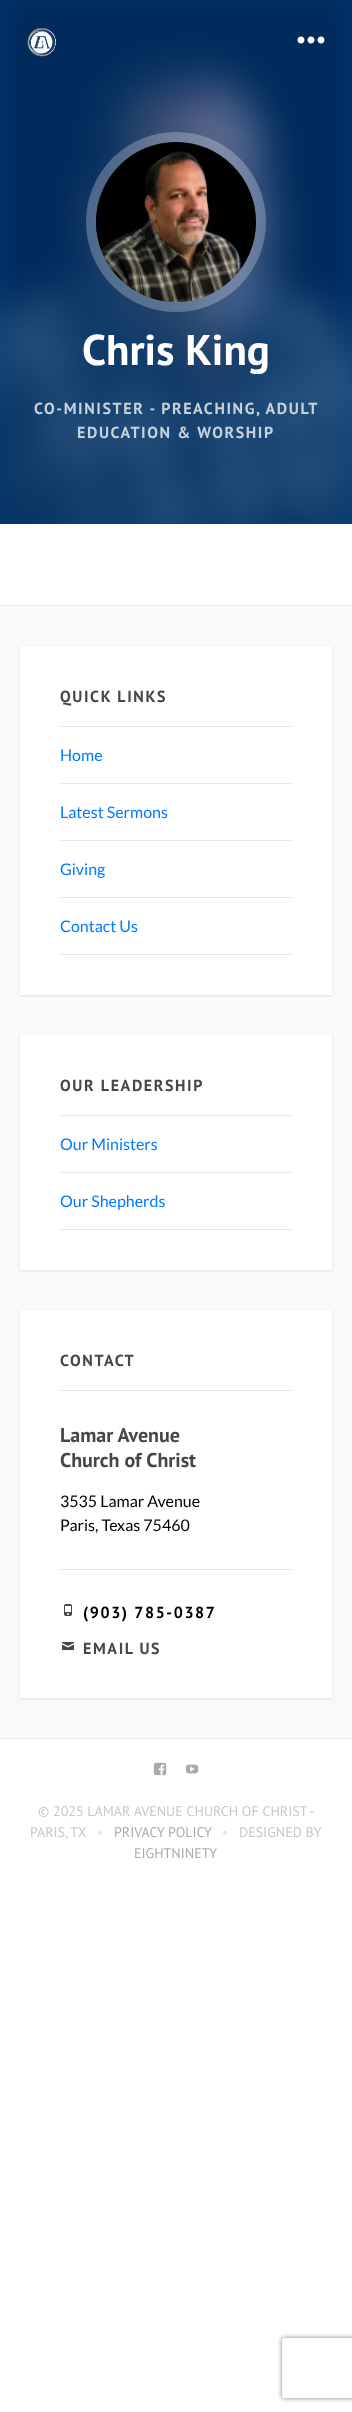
<svg xmlns="http://www.w3.org/2000/svg" width="352" height="2412" viewBox="0 0 352 2412">
  <defs>
    <filter id="blur1" x="-50%" y="-200%" width="200%" height="500%"><feGaussianBlur stdDeviation="1"/></filter>
    <clipPath id="clip1"><path d="M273 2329H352V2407H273ZM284 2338H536C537 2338 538 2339 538 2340V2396C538 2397 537 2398 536 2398H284C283 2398 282 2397 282 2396V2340C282 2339 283 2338 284 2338Z" clip-rule="evenodd"/></clipPath>
    <filter id="blur2" x="-50%" y="-200%" width="200%" height="500%"><feGaussianBlur stdDeviation="2.5"/></filter>
  </defs>
  <rect width="100%" height="100%" fill="#ffffff"/>
  <rect x="0" y="0" width="352" height="524" fill="#004999"/>
  <image x="0" y="0" width="352" height="524" href="img1.png"/>
  <image x="27" y="28" width="30" height="29" href="img2.png"/>
  <image x="297" y="36" width="28" height="8" href="img3.png"/>
  <circle cx="176" cy="222" r="85" fill="none" stroke="#ffffff" stroke-opacity="0.25" stroke-width="10"/>
  <image x="96" y="142" width="160" height="160" href="img4.png"/>
  <text x="82" y="365" font-family="PT Sans" font-size="43" font-weight="bold" fill="#ffffff">Chris King</text>
  <text x="34" y="414" font-family="PT Sans" font-size="16" font-weight="bold" letter-spacing="1.6" fill="#c6d1dc">CO-MINISTER - PREACHING, ADULT</text>
  <text x="77" y="438" font-family="PT Sans" font-size="16" font-weight="bold" letter-spacing="1.6" fill="#c6d1dc">EDUCATION &amp; WORSHIP</text>
  <rect x="0" y="606" width="352" height="1132" fill="#f9f9f9"/>
  <rect x="0" y="605" width="352" height="1" fill="#e9e9e9"/>
  <rect x="20" y="647" width="312" height="349" fill="#000000" fill-opacity="0.1" filter="url(#blur1)"/>
  <rect x="20" y="646" width="312" height="349" fill="#ffffff"/>
  <text x="60" y="702" font-family="PT Sans" font-size="16" font-weight="bold" letter-spacing="1.6" fill="#47474a">QUICK LINKS</text>
  <rect x="60" y="954" width="232" height="1" fill="#e9e9e9"/>
  <rect x="60" y="726" width="232" height="1" fill="#e9e9e9"/>
  <text x="60" y="761" font-family="Lato" font-size="16" fill="#007aff">Home</text>
  <rect x="60" y="783" width="232" height="1" fill="#e9e9e9"/>
  <text x="60" y="818" font-family="Lato" font-size="16" fill="#007aff">Latest Sermons</text>
  <rect x="60" y="840" width="232" height="1" fill="#e9e9e9"/>
  <text x="60" y="875" font-family="Lato" font-size="16" fill="#007aff">Giving</text>
  <rect x="60" y="897" width="232" height="1" fill="#e9e9e9"/>
  <text x="60" y="932" font-family="Lato" font-size="16" fill="#007aff">Contact Us</text>
  <rect x="20" y="1036" width="312" height="235" fill="#000000" fill-opacity="0.1" filter="url(#blur1)"/>
  <rect x="20" y="1035" width="312" height="235" fill="#ffffff"/>
  <text x="60" y="1091" font-family="PT Sans" font-size="16" font-weight="bold" letter-spacing="1.6" fill="#47474a">OUR LEADERSHIP</text>
  <rect x="60" y="1229" width="232" height="1" fill="#e9e9e9"/>
  <rect x="60" y="1115" width="232" height="1" fill="#e9e9e9"/>
  <text x="60" y="1150" font-family="Lato" font-size="16" fill="#007aff">Our Ministers</text>
  <rect x="60" y="1172" width="232" height="1" fill="#e9e9e9"/>
  <text x="60" y="1207" font-family="Lato" font-size="16" fill="#007aff">Our Shepherds</text>
  <rect x="20" y="1311" width="312" height="388" fill="#000000" fill-opacity="0.1" filter="url(#blur1)"/>
  <rect x="20" y="1310" width="312" height="388" fill="#ffffff"/>
  <text x="60" y="1366" font-family="PT Sans" font-size="16" font-weight="bold" letter-spacing="1.6" fill="#47474a">CONTACT</text>
  <rect x="60" y="1390" width="232" height="1" fill="#e9e9e9"/>
  <text x="60" y="1442" font-family="PT Sans" font-size="20" font-weight="bold" fill="#47474a">Lamar Avenue</text>
  <text x="60" y="1467" font-family="PT Sans" font-size="20" font-weight="bold" fill="#47474a">Church of Christ</text>
  <text x="60" y="1507" font-family="Lato" font-size="16" fill="#000000">3535 Lamar Avenue</text>
  <text x="60" y="1531" font-family="Lato" font-size="16" fill="#000000">Paris, Texas 75460</text>
  <rect x="60" y="1569" width="232" height="1" fill="#e9e9e9"/>
  <image x="64" y="1604" width="8" height="12" href="img5.png"/>
  <text x="83" y="1618" font-family="PT Sans" font-size="16" font-weight="bold" letter-spacing="1.6" fill="#000000">(903) 785-0387</text>
  <image x="62" y="1642" width="12" height="8" href="img6.png"/>
  <text x="83" y="1654" font-family="PT Sans" font-size="16" font-weight="bold" letter-spacing="1.6" fill="#47474a">EMAIL US</text>
  <rect x="0" y="1738" width="352" height="1" fill="#e9e9e9"/>
  <image x="153" y="1762" width="14" height="14" href="img7.png"/>
  <image x="185" y="1764" width="14" height="10" href="img8.png"/>
  <text x="38" y="1816" font-family="PT Sans" font-size="14" fill="#c7c7c9">© 2025 LAMAR AVENUE CHURCH OF CHRIST -</text>
  <text x="30" y="1837" font-family="PT Sans" font-size="14" fill="#c7c7c9">PARIS, TX</text>
  <text x="97" y="1837" font-family="PT Sans" font-size="14" fill="#e3e3e4">•</text>
  <text x="114" y="1837" font-family="PT Sans" font-size="14" fill="#aaaaae">PRIVACY POLICY</text>
  <text x="222" y="1837" font-family="PT Sans" font-size="14" fill="#e3e3e4">•</text>
  <text x="239" y="1837" font-family="PT Sans" font-size="14" fill="#c7c7c9">DESIGNED BY</text>
  <text x="134" y="1858" font-family="PT Sans" font-size="14" fill="#aaaaae">EIGHTNINETY</text>
  <g clip-path="url(#clip1)">
    <rect x="282" y="2338" width="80" height="60" rx="2" fill="#808080" filter="url(#blur2)"/>
  </g>
</svg>
